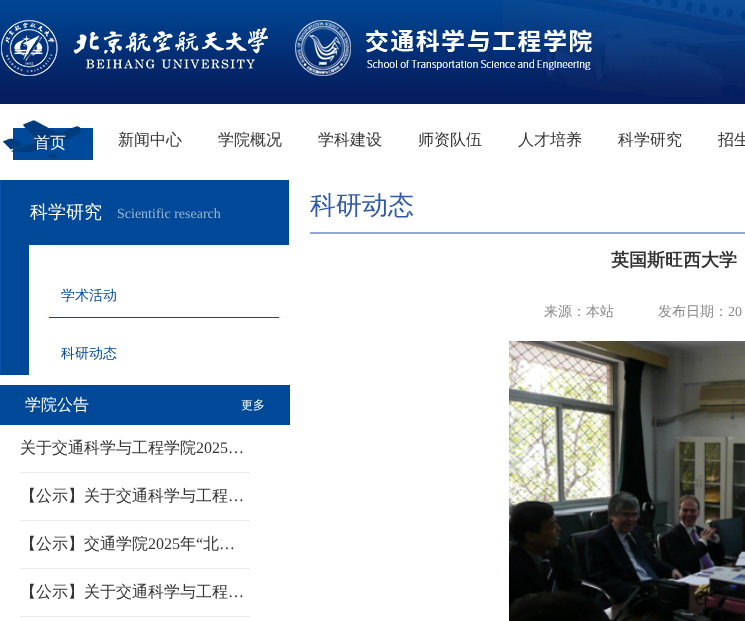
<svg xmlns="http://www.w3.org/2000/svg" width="745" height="621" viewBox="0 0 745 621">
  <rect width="100%" height="100%" fill="#ffffff"/>
  <image x="0" y="0" width="745" height="104" href="img1.png"/>
  <image x="503" y="0" width="242" height="97" href="img2.png"/>
  <image x="1" y="20" width="591" height="56" href="img3.png"/>
  <image x="0" y="120" width="96" height="40" href="img4.png"/>
  <text x="34" y="148" font-family="WenQuanYi Zen Hei" font-size="16" font-weight="500" fill="#ffffff">首页</text>
  <text x="118" y="145" font-family="WenQuanYi Zen Hei" font-size="16" font-weight="500" fill="#333333">新闻中心</text>
  <text x="218" y="145" font-family="WenQuanYi Zen Hei" font-size="16" font-weight="500" fill="#333333">学院概况</text>
  <text x="318" y="145" font-family="WenQuanYi Zen Hei" font-size="16" font-weight="500" fill="#333333">学科建设</text>
  <text x="418" y="145" font-family="WenQuanYi Zen Hei" font-size="16" font-weight="500" fill="#333333">师资队伍</text>
  <text x="518" y="145" font-family="WenQuanYi Zen Hei" font-size="16" font-weight="500" fill="#333333">人才培养</text>
  <text x="618" y="145" font-family="WenQuanYi Zen Hei" font-size="16" font-weight="500" fill="#333333">科学研究</text>
  <text x="718" y="145" font-family="WenQuanYi Zen Hei" font-size="16" font-weight="500" fill="#333333">招生</text>
  <image x="0" y="180" width="289" height="195" href="img5.png"/>
  <text x="30" y="218" font-family="WenQuanYi Zen Hei" font-size="18" font-weight="500" fill="#ffffff">科学研究</text>
  <text x="117" y="218" font-family="Liberation Serif" font-size="14" fill="#99b6d6">Scientific research</text>
  <rect x="29" y="245" width="260" height="130" fill="#ffffff"/>
  <rect x="49" y="317" width="230" height="1" fill="#004999"/>
  <text x="61" y="300" font-family="WenQuanYi Zen Hei" font-size="14" font-weight="500" fill="#004999">学术活动</text>
  <text x="61" y="358" font-family="WenQuanYi Zen Hei" font-size="14" font-weight="500" fill="#004999">科研动态</text>
  <rect x="0" y="385" width="290" height="40" fill="#004999"/>
  <text x="25" y="410" font-family="WenQuanYi Zen Hei" font-size="16" font-weight="500" fill="#ffffff">学院公告</text>
  <text x="241" y="409" font-family="WenQuanYi Zen Hei" font-size="12" font-weight="500" fill="#ffffff">更多</text>
  <rect x="20" y="472" width="230" height="1" fill="#e9ecf1"/>
  <text x="20" y="453" font-family="WenQuanYi Zen Hei" font-size="16" font-weight="500" fill="#333333">关于交通科学与工程学院</text>
  <text x="196" y="453" font-family="Liberation Serif" font-size="16" fill="#333333">2025…</text>
  <rect x="20" y="520" width="230" height="1" fill="#e9ecf1"/>
  <text x="20" y="501" font-family="WenQuanYi Zen Hei" font-size="16" font-weight="500" fill="#333333">【公示】关于交通科学与工程</text>
  <text x="228" y="501" font-family="Liberation Serif" font-size="16" fill="#333333">…</text>
  <rect x="20" y="568" width="230" height="1" fill="#e9ecf1"/>
  <text x="20" y="549" font-family="WenQuanYi Zen Hei" font-size="16" font-weight="500" fill="#333333">【公示】交通学院</text>
  <text x="148" y="549" font-family="Liberation Serif" font-size="16" fill="#333333">2025</text>
  <text x="180" y="549" font-family="WenQuanYi Zen Hei" font-size="16" font-weight="500" fill="#333333">年</text>
  <text x="196" y="549" font-family="Liberation Serif" font-size="16" fill="#333333">“</text>
  <text x="203" y="549" font-family="WenQuanYi Zen Hei" font-size="16" font-weight="500" fill="#333333">北</text>
  <text x="219" y="549" font-family="Liberation Serif" font-size="16" fill="#333333">…</text>
  <rect x="20" y="616" width="230" height="1" fill="#e9ecf1"/>
  <text x="20" y="597" font-family="WenQuanYi Zen Hei" font-size="16" font-weight="500" fill="#333333">【公示】关于交通科学与工程</text>
  <text x="228" y="597" font-family="Liberation Serif" font-size="16" fill="#333333">…</text>
  <rect x="310" y="232" width="435" height="2" fill="#92a7d3"/>
  <text x="310" y="214" font-family="WenQuanYi Zen Hei" font-size="26" font-weight="500" fill="#315aaa">科研动态</text>
  <text x="611" y="266" font-family="WenQuanYi Zen Hei" font-size="18" font-weight="bold" fill="#333333">英国斯旺西大学</text>
  <text x="544" y="316" font-family="WenQuanYi Zen Hei" font-size="14" font-weight="500" fill="#888888">来源：本站</text>
  <text x="658" y="316" font-family="WenQuanYi Zen Hei" font-size="14" font-weight="500" fill="#888888">发布日期：</text>
  <text x="728" y="316" font-family="Liberation Serif" font-size="14" fill="#888888">20</text>
  <image x="509" y="341" width="236" height="280" href="img6.png"/>
</svg>
